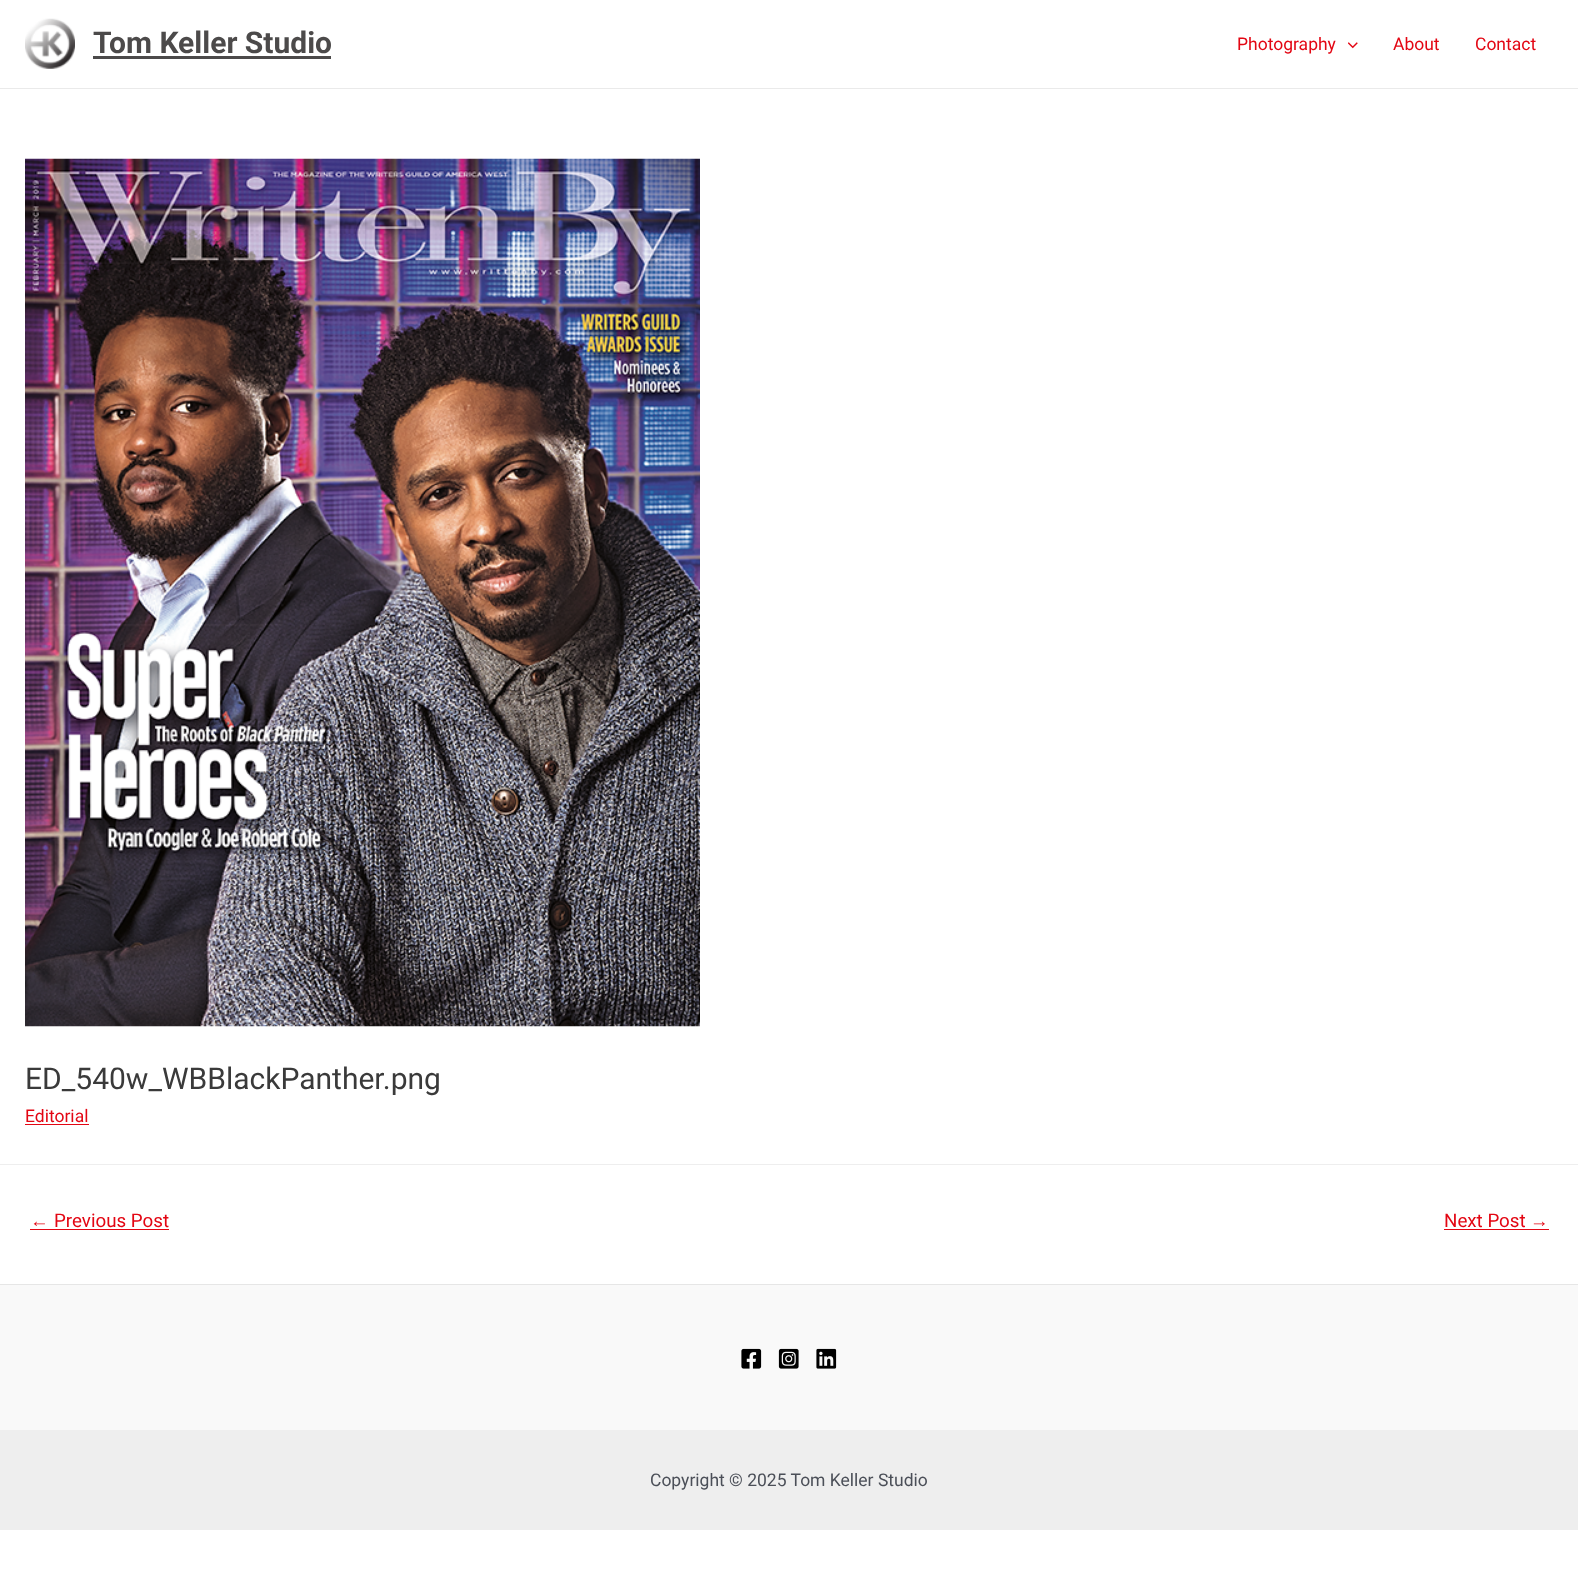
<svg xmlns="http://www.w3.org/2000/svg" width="1578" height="1582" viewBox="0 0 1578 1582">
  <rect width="100%" height="100%" fill="#ffffff"/>
  <rect x="0" y="88" width="1578" height="1" fill="#eaeaea"/>
  <image x="25" y="18" width="50" height="51" href="img1.png"/>
  <text x="93" y="53" font-family="Roboto" font-size="30" font-weight="bold" fill="#4c4a4a">Tom Keller Studio</text>
  <rect x="93" y="56" width="238" height="3" fill="#4c4a4a"/>
  <text x="1237" y="50" font-family="Roboto" font-size="17.5" fill="#e30613">Photography</text>
  <image x="1348" y="42" width="10" height="7" href="img2.png"/>
  <text x="1393" y="50" font-family="Roboto" font-size="17.5" fill="#e30613">About</text>
  <text x="1475" y="50" font-family="Roboto" font-size="17.5" fill="#e30613">Contact</text>
  <image x="25" y="158" width="675" height="869" href="img3.png"/>
  <text x="25" y="1089" font-family="Roboto" font-size="30" fill="#3a3a3a">ED_540w_WBBlackPanther.png</text>
  <text x="25" y="1122" font-family="Roboto" font-size="17.5" fill="#e30613">Editorial</text>
  <rect x="25" y="1124" width="64" height="1" fill="#e30613"/>
  <rect x="0" y="1164" width="1578" height="1" fill="#eeeeee"/>
  <text x="30" y="1227" font-family="Liberation Sans" font-size="18.75" fill="#e30613">←</text>
  <rect x="30" y="1229" width="139" height="1" fill="#e30613"/>
  <text x="54" y="1227" font-family="Roboto" font-size="18.75" fill="#e30613">Previous Post</text>
  <text x="1444" y="1227" font-family="Roboto" font-size="18.75" fill="#e30613">Next Post</text>
  <rect x="1444" y="1229" width="105" height="1" fill="#e30613"/>
  <text x="1530" y="1227" font-family="Liberation Sans" font-size="18.75" fill="#e30613">→</text>
  <rect x="0" y="1285" width="1578" height="145" fill="#f9f9f9"/>
  <rect x="0" y="1284" width="1578" height="1" fill="#e6e6e6"/>
  <image x="741" y="1348" width="21" height="21" href="img4.png"/>
  <image x="778" y="1348" width="21" height="21" href="img5.png"/>
  <image x="816" y="1348" width="21" height="21" href="img6.png"/>
  <rect x="0" y="1430" width="1578" height="100" fill="#eeeeee"/>
  <text x="650" y="1486" font-family="Roboto" font-size="17.5" fill="#4b4f58">Copyright © 2025 Tom Keller Studio</text>
</svg>
